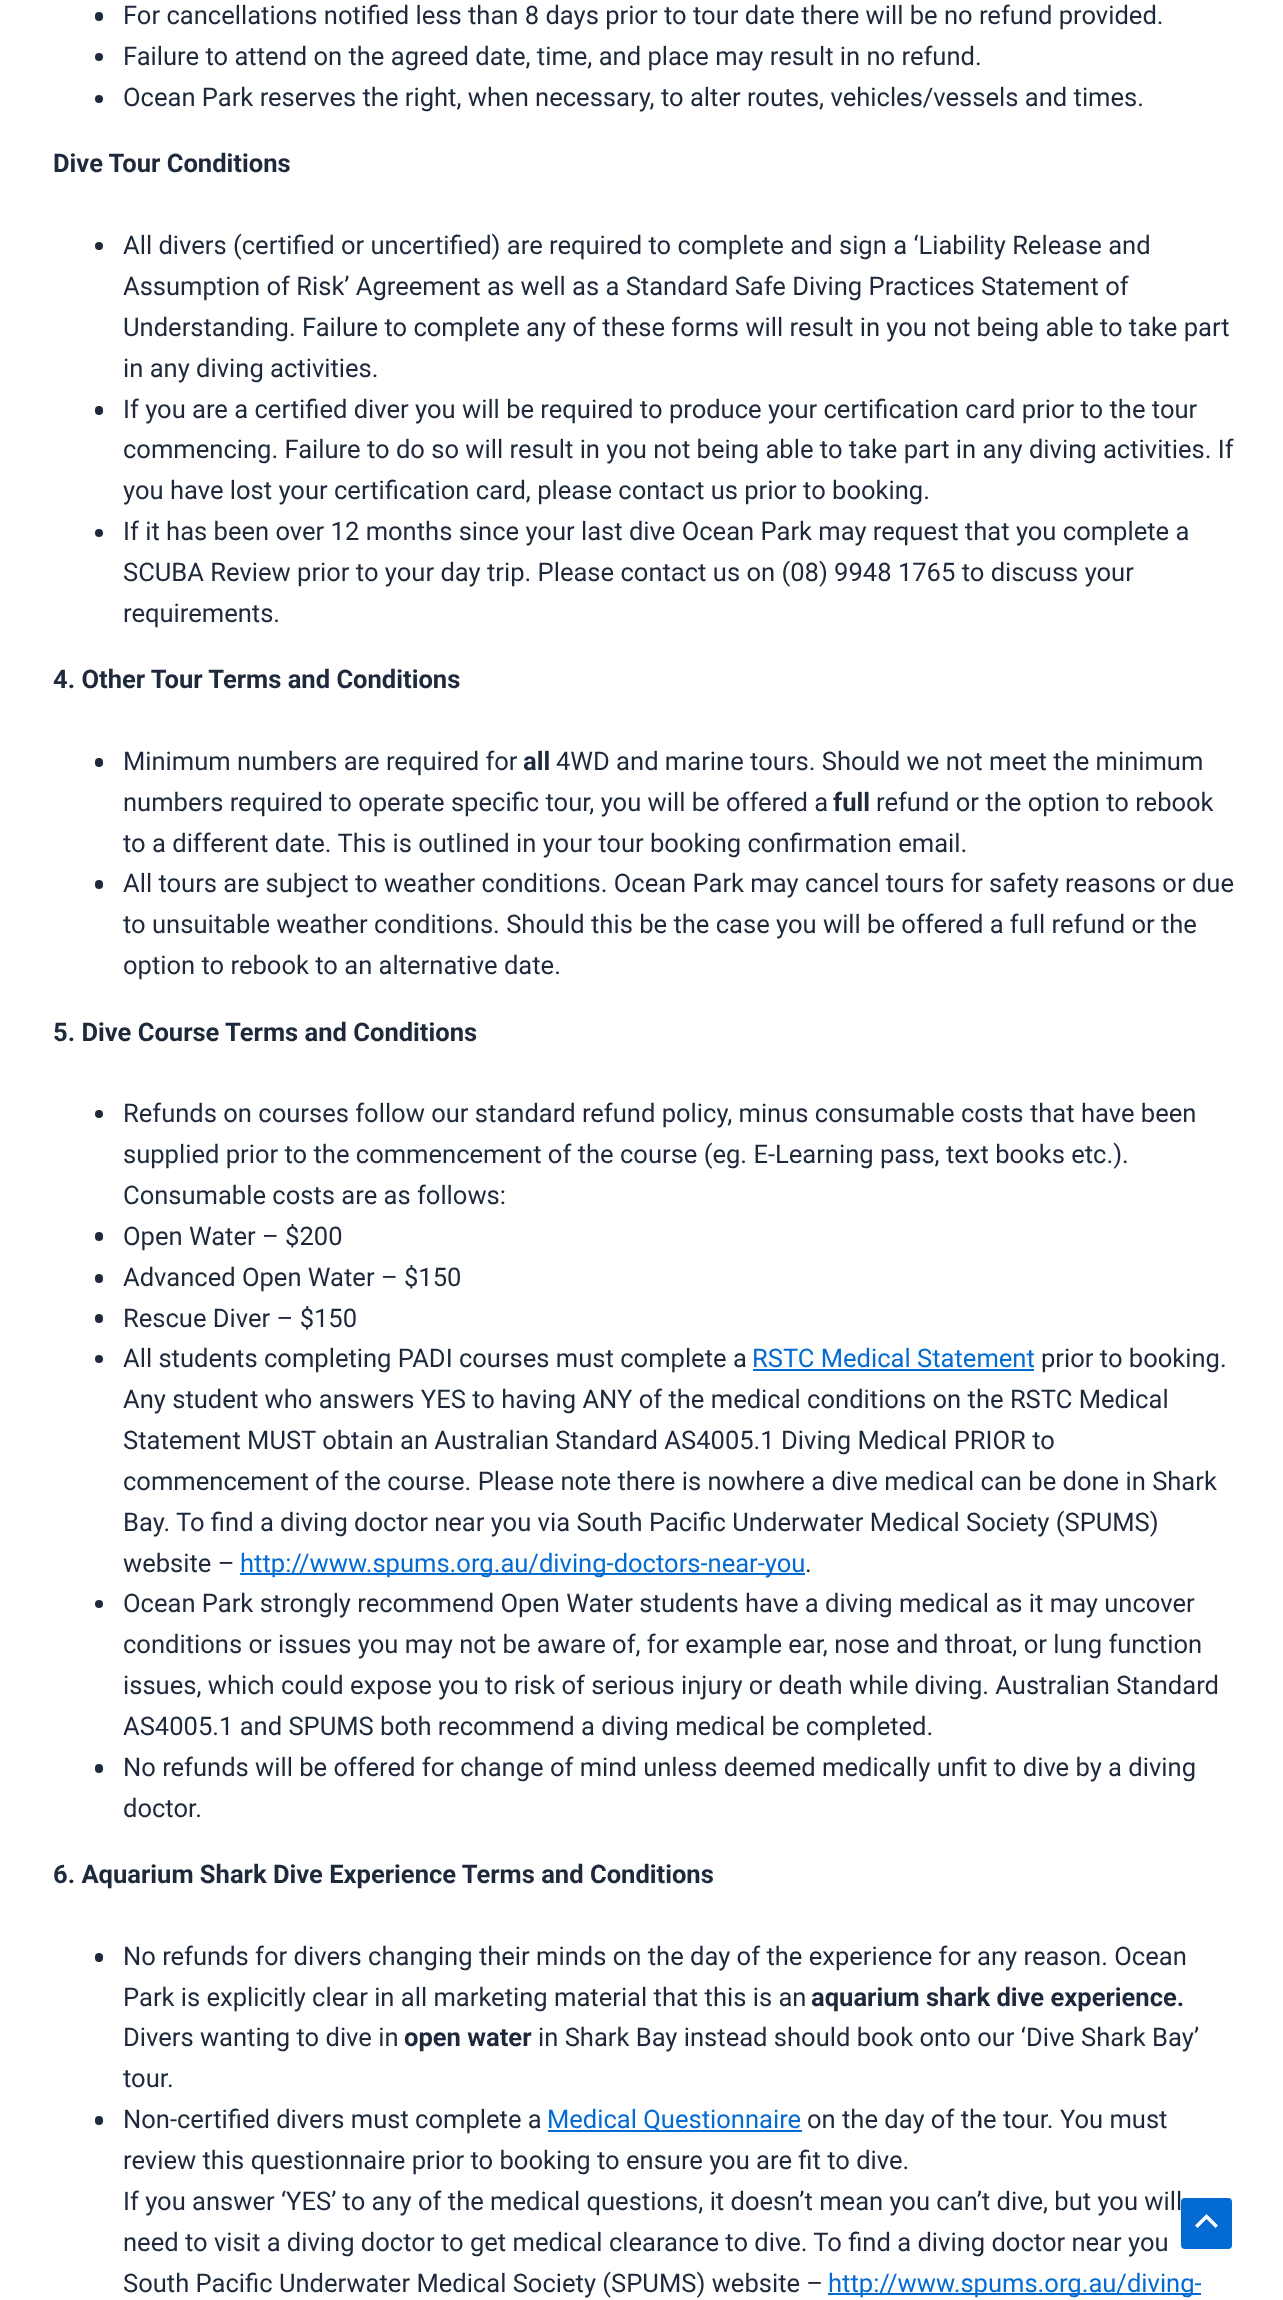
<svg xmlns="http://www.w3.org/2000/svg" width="1283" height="2300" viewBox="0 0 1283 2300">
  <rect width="100%" height="100%" fill="#ffffff"/>
  <rect x="95" y="12" width="8" height="9" rx="4" fill="#1e293b"/>
  <text x="123" y="24" font-family="Roboto" font-size="25.55" fill="#1e293b">For cancellations notified less than 8 days prior to tour date there will be no refund provided.</text>
  <circle cx="99" cy="57" r="4" fill="#1e293b"/>
  <text x="123" y="65" font-family="Roboto" font-size="25.55" fill="#1e293b">Failure to attend on the agreed date, time, and place may result in no refund.</text>
  <circle cx="99" cy="99" r="4" fill="#1e293b"/>
  <text x="123" y="106" font-family="Roboto" font-size="25.55" fill="#1e293b">Ocean Park reserves the right, when necessary, to alter routes, vehicles/vessels and times.</text>
  <text x="53" y="172" font-family="Roboto" font-size="25.55" font-weight="bold" fill="#1e293b">Dive Tour Conditions</text>
  <circle cx="99" cy="246" r="4" fill="#1e293b"/>
  <text x="123" y="254" font-family="Roboto" font-size="25.55" fill="#1e293b">All divers (certified or uncertified) are required to complete and sign a ‘Liability Release and</text>
  <text x="123" y="295" font-family="Roboto" font-size="25.55" fill="#1e293b">Assumption of Risk’ Agreement as well as a Standard Safe Diving Practices Statement of</text>
  <text x="123" y="336" font-family="Roboto" font-size="25.55" fill="#1e293b">Understanding. Failure to complete any of these forms will result in you not being able to take part</text>
  <text x="123" y="377" font-family="Roboto" font-size="25.55" fill="#1e293b">in any diving activities.</text>
  <rect x="95" y="406" width="8" height="9" rx="4" fill="#1e293b"/>
  <text x="123" y="418" font-family="Roboto" font-size="25.55" fill="#1e293b">If you are a certified diver you will be required to produce your certification card prior to the tour</text>
  <text x="123" y="458" font-family="Roboto" font-size="25.55" fill="#1e293b">commencing. Failure to do so will result in you not being able to take part in any diving activities. If</text>
  <text x="123" y="499" font-family="Roboto" font-size="25.55" fill="#1e293b">you have lost your certification card, please contact us prior to booking.</text>
  <circle cx="99" cy="533" r="4" fill="#1e293b"/>
  <text x="123" y="540" font-family="Roboto" font-size="25.55" fill="#1e293b">If it has been over 12 months since your last dive Ocean Park may request that you complete a</text>
  <text x="123" y="581" font-family="Roboto" font-size="25.55" fill="#1e293b">SCUBA Review prior to your day trip. Please contact us on (08) 9948 1765 to discuss your</text>
  <text x="123" y="622" font-family="Roboto" font-size="25.55" fill="#1e293b">requirements.</text>
  <text x="53" y="688" font-family="Roboto" font-size="25.55" font-weight="bold" fill="#1e293b">4. Other Tour Terms and Conditions</text>
  <rect x="95" y="758" width="8" height="9" rx="4" fill="#1e293b"/>
  <text x="123" y="770" font-family="Roboto" font-size="25.55" fill="#1e293b">Minimum numbers are required for</text>
  <text x="523" y="770" font-family="Roboto" font-size="25.55" font-weight="bold" fill="#1e293b">all</text>
  <text x="556" y="770" font-family="Roboto" font-size="25.55" fill="#1e293b">4WD and marine tours. Should we not meet the minimum</text>
  <text x="123" y="811" font-family="Roboto" font-size="25.55" fill="#1e293b">numbers required to operate specific tour, you will be offered a</text>
  <text x="833" y="811" font-family="Roboto" font-size="25.55" font-weight="bold" fill="#1e293b">full</text>
  <text x="876" y="811" font-family="Roboto" font-size="25.55" fill="#1e293b">refund or the option to rebook</text>
  <text x="123" y="852" font-family="Roboto" font-size="25.55" fill="#1e293b">to a different date. This is outlined in your tour booking confirmation email.</text>
  <rect x="95" y="880" width="8" height="9" rx="4" fill="#1e293b"/>
  <text x="123" y="892" font-family="Roboto" font-size="25.55" fill="#1e293b">All tours are subject to weather conditions. Ocean Park may cancel tours for safety reasons or due</text>
  <text x="123" y="933" font-family="Roboto" font-size="25.55" fill="#1e293b">to unsuitable weather conditions. Should this be the case you will be offered a full refund or the</text>
  <text x="123" y="974" font-family="Roboto" font-size="25.55" fill="#1e293b">option to rebook to an alternative date.</text>
  <text x="53" y="1041" font-family="Roboto" font-size="25.55" font-weight="bold" fill="#1e293b">5. Dive Course Terms and Conditions</text>
  <circle cx="99" cy="1114" r="4" fill="#1e293b"/>
  <text x="123" y="1122" font-family="Roboto" font-size="25.55" fill="#1e293b">Refunds on courses follow our standard refund policy, minus consumable costs that have been</text>
  <text x="123" y="1163" font-family="Roboto" font-size="25.55" fill="#1e293b">supplied prior to the commencement of the course (eg. E-Learning pass, text books etc.).</text>
  <text x="123" y="1204" font-family="Roboto" font-size="25.55" fill="#1e293b">Consumable costs are as follows:</text>
  <rect x="95" y="1232" width="8" height="9" rx="4" fill="#1e293b"/>
  <text x="123" y="1245" font-family="Roboto" font-size="25.55" fill="#1e293b">Open Water – $200</text>
  <rect x="95" y="1274" width="8" height="9" rx="4" fill="#1e293b"/>
  <text x="123" y="1286" font-family="Roboto" font-size="25.55" fill="#1e293b">Advanced Open Water – $150</text>
  <rect x="95" y="1314" width="8" height="9" rx="4" fill="#1e293b"/>
  <text x="123" y="1327" font-family="Roboto" font-size="25.55" fill="#1e293b">Rescue Diver – $150</text>
  <circle cx="99" cy="1359" r="4" fill="#1e293b"/>
  <text x="123" y="1367" font-family="Roboto" font-size="25.55" fill="#1e293b">All students completing PADI courses must complete a</text>
  <text x="752" y="1367" font-family="Roboto" font-size="25.55" fill="#046bd2">RSTC Medical Statement</text>
  <rect x="753" y="1369" width="281" height="2" fill="#046bd2"/>
  <text x="1041" y="1367" font-family="Roboto" font-size="25.55" fill="#1e293b">prior to booking.</text>
  <text x="123" y="1408" font-family="Roboto" font-size="25.55" fill="#1e293b">Any student who answers YES to having ANY of the medical conditions on the RSTC Medical</text>
  <text x="123" y="1449" font-family="Roboto" font-size="25.55" fill="#1e293b">Statement MUST obtain an Australian Standard AS4005.1 Diving Medical PRIOR to</text>
  <text x="123" y="1490" font-family="Roboto" font-size="25.55" fill="#1e293b">commencement of the course. Please note there is nowhere a dive medical can be done in Shark</text>
  <text x="123" y="1531" font-family="Roboto" font-size="25.55" fill="#1e293b">Bay. To find a diving doctor near you via South Pacific Underwater Medical Society (SPUMS)</text>
  <text x="123" y="1572" font-family="Roboto" font-size="25.55" fill="#1e293b">website –</text>
  <rect x="240" y="1573" width="565" height="2" fill="#046bd2"/>
  <text x="240" y="1572" font-family="Roboto" font-size="25.55" fill="#046bd2">http://www.spums.org.au/diving-doctors-near-you</text>
  <text x="805" y="1572" font-family="Roboto" font-size="25.55" fill="#1e293b">.</text>
  <circle cx="99" cy="1604" r="4" fill="#1e293b"/>
  <text x="123" y="1612" font-family="Roboto" font-size="25.55" fill="#1e293b">Ocean Park strongly recommend Open Water students have a diving medical as it may uncover</text>
  <text x="123" y="1653" font-family="Roboto" font-size="25.55" fill="#1e293b">conditions or issues you may not be aware of, for example ear, nose and throat, or lung function</text>
  <text x="123" y="1694" font-family="Roboto" font-size="25.55" fill="#1e293b">issues, which could expose you to risk of serious injury or death while diving. Australian Standard</text>
  <text x="123" y="1735" font-family="Roboto" font-size="25.55" fill="#1e293b">AS4005.1 and SPUMS both recommend a diving medical be completed.</text>
  <rect x="95" y="1764" width="8" height="9" rx="4" fill="#1e293b"/>
  <text x="123" y="1776" font-family="Roboto" font-size="25.55" fill="#1e293b">No refunds will be offered for change of mind unless deemed medically unfit to dive by a diving</text>
  <text x="123" y="1817" font-family="Roboto" font-size="25.55" fill="#1e293b">doctor.</text>
  <text x="53" y="1883" font-family="Roboto" font-size="25.55" font-weight="bold" fill="#1e293b">6. Aquarium Shark Dive Experience Terms and Conditions</text>
  <rect x="95" y="1953" width="8" height="9" rx="4" fill="#1e293b"/>
  <text x="123" y="1965" font-family="Roboto" font-size="25.55" fill="#1e293b">No refunds for divers changing their minds on the day of the experience for any reason. Ocean</text>
  <text x="123" y="2006" font-family="Roboto" font-size="25.55" fill="#1e293b">Park is explicitly clear in all marketing material that this is an</text>
  <text x="811" y="2006" font-family="Roboto" font-size="25.55" font-weight="bold" fill="#1e293b">aquarium shark dive experience.</text>
  <text x="123" y="2046" font-family="Roboto" font-size="25.55" fill="#1e293b">Divers wanting to dive in</text>
  <text x="404" y="2046" font-family="Roboto" font-size="25.55" font-weight="bold" fill="#1e293b">open water</text>
  <text x="538" y="2046" font-family="Roboto" font-size="25.55" fill="#1e293b">in Shark Bay instead should book onto our ‘Dive Shark Bay’</text>
  <text x="123" y="2087" font-family="Roboto" font-size="25.55" fill="#1e293b">tour.</text>
  <rect x="95" y="2116" width="8" height="9" rx="4" fill="#1e293b"/>
  <text x="123" y="2128" font-family="Roboto" font-size="25.55" fill="#1e293b">Non-certified divers must complete a</text>
  <rect x="548" y="2130" width="254" height="2" fill="#046bd2"/>
  <text x="547" y="2128" font-family="Roboto" font-size="25.55" fill="#046bd2">Medical Questionnaire</text>
  <text x="807" y="2128" font-family="Roboto" font-size="25.55" fill="#1e293b">on the day of the tour. You must</text>
  <text x="123" y="2169" font-family="Roboto" font-size="25.55" fill="#1e293b">review this questionnaire prior to booking to ensure you are fit to dive.</text>
  <text x="123" y="2210" font-family="Roboto" font-size="25.55" fill="#1e293b">If you answer ‘YES’ to any of the medical questions, it doesn’t mean you can’t dive, but you will</text>
  <text x="123" y="2251" font-family="Roboto" font-size="25.55" fill="#1e293b">need to visit a diving doctor to get medical clearance to dive. To find a diving doctor near you</text>
  <text x="123" y="2292" font-family="Roboto" font-size="25.55" fill="#1e293b">South Pacific Underwater Medical Society (SPUMS) website –</text>
  <rect x="828" y="2293" width="373" height="2" fill="#046bd2"/>
  <text x="828" y="2292" font-family="Roboto" font-size="25.55" fill="#046bd2">http://www.spums.org.au/diving-</text>
  <rect x="1181" y="2198" width="51" height="51" rx="4" fill="#046bd2"/>
  <path d="M1218 2225.5L1206.5 2214L1195 2225.5L1197.5 2228L1206.5 2219L1215.5 2228Z" fill="#ffffff"/>
</svg>
